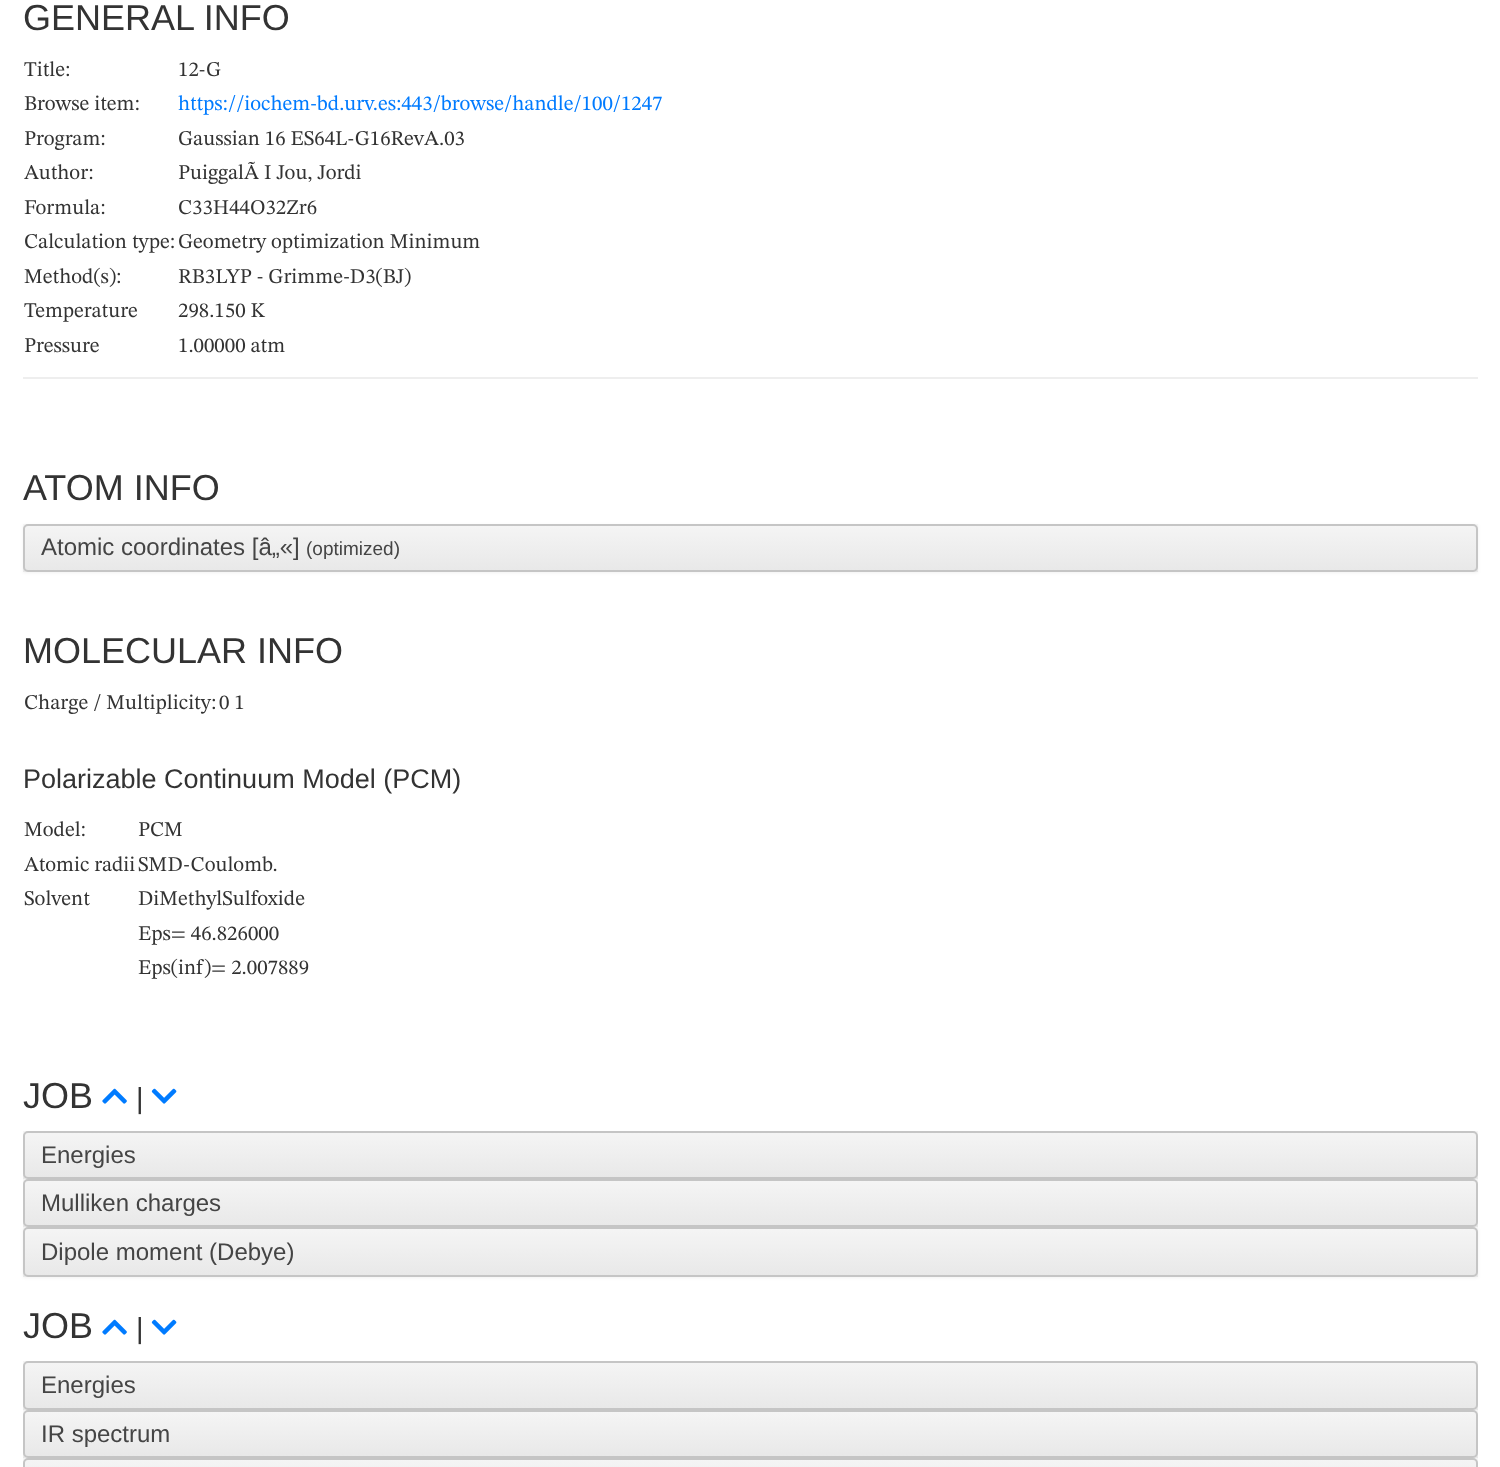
<svg xmlns="http://www.w3.org/2000/svg" width="1500" height="1467" viewBox="0 0 1500 1467">
  <defs>
    <filter id="blur1" x="-50%" y="-200%" width="200%" height="500%"><feGaussianBlur stdDeviation="1.5"/></filter>
    <linearGradient id="g1" gradientUnits="userSpaceOnUse" x1="750" y1="523" x2="750" y2="572"><stop offset="0" stop-color="#f5f5f5"/><stop offset="1" stop-color="#e8e8e8"/></linearGradient>
    <linearGradient id="g2" gradientUnits="userSpaceOnUse" x1="750" y1="1131" x2="750" y2="1179"><stop offset="0" stop-color="#f5f5f5"/><stop offset="1" stop-color="#e8e8e8"/></linearGradient>
    <linearGradient id="g3" gradientUnits="userSpaceOnUse" x1="750" y1="1179" x2="750" y2="1227"><stop offset="0" stop-color="#f5f5f5"/><stop offset="1" stop-color="#e8e8e8"/></linearGradient>
    <linearGradient id="g4" gradientUnits="userSpaceOnUse" x1="750" y1="1227" x2="750" y2="1277"><stop offset="0" stop-color="#f5f5f5"/><stop offset="1" stop-color="#e8e8e8"/></linearGradient>
    <linearGradient id="g5" gradientUnits="userSpaceOnUse" x1="750" y1="1360" x2="750" y2="1410"><stop offset="0" stop-color="#f5f5f5"/><stop offset="1" stop-color="#e8e8e8"/></linearGradient>
    <linearGradient id="g6" gradientUnits="userSpaceOnUse" x1="750" y1="1410" x2="750" y2="1458"><stop offset="0" stop-color="#f5f5f5"/><stop offset="1" stop-color="#e8e8e8"/></linearGradient>
    <linearGradient id="g7" gradientUnits="userSpaceOnUse" x1="750" y1="1458" x2="750" y2="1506"><stop offset="0" stop-color="#f5f5f5"/><stop offset="1" stop-color="#e8e8e8"/></linearGradient>
  </defs>
  <rect width="100%" height="100%" fill="#ffffff"/>
  <rect x="23" y="377" width="1455" height="2" fill="#eeeeee"/>
  <text x="23" y="30" font-family="Liberation Sans" font-size="36" fill="#333333">GENERAL INFO</text>
  <text x="24" y="76" font-family="STIX Two Text" font-size="21" fill="#333333">Title:</text>
  <text x="178" y="76" font-family="STIX Two Text" font-size="21" fill="#333333">12-G</text>
  <text x="24" y="110" font-family="STIX Two Text" font-size="21" fill="#333333">Browse item:</text>
  <text x="178" y="110" font-family="STIX Two Text" font-size="21" fill="#007bff">https://iochem-bd.urv.es:443/browse/handle/100/1247</text>
  <text x="24" y="145" font-family="STIX Two Text" font-size="21" fill="#333333">Program:</text>
  <text x="178" y="145" font-family="STIX Two Text" font-size="21" fill="#333333">Gaussian 16 ES64L-G16RevA.03</text>
  <text x="24" y="179" font-family="STIX Two Text" font-size="21" fill="#333333">Author:</text>
  <text x="178" y="179" font-family="STIX Two Text" font-size="21" fill="#333333">PuiggalÃ I Jou, Jordi</text>
  <text x="24" y="214" font-family="STIX Two Text" font-size="21" fill="#333333">Formula:</text>
  <text x="178" y="214" font-family="STIX Two Text" font-size="21" fill="#333333">C33H44O32Zr6</text>
  <text x="24" y="248" font-family="STIX Two Text" font-size="21" fill="#333333">Calculation type:</text>
  <text x="178" y="248" font-family="STIX Two Text" font-size="21" fill="#333333">Geometry optimization Minimum</text>
  <text x="24" y="283" font-family="STIX Two Text" font-size="21" fill="#333333">Method(s):</text>
  <text x="178" y="283" font-family="STIX Two Text" font-size="21" fill="#333333">RB3LYP - Grimme-D3(BJ)</text>
  <text x="24" y="317" font-family="STIX Two Text" font-size="21" fill="#333333">Temperature</text>
  <text x="178" y="317" font-family="STIX Two Text" font-size="21" fill="#333333">298.150 K</text>
  <text x="24" y="352" font-family="STIX Two Text" font-size="21" fill="#333333">Pressure</text>
  <text x="178" y="352" font-family="STIX Two Text" font-size="21" fill="#333333">1.00000 atm</text>
  <text x="23" y="500" font-family="Liberation Sans" font-size="36" fill="#333333">ATOM INFO</text>
  <rect x="23" y="525" width="1455" height="48" fill="#000000" fill-opacity="0.05" filter="url(#blur1)"/>
  <rect x="23" y="524" width="1455" height="48" fill="url(#g1)"/>
  <rect x="24" y="525" width="1453" height="46" rx="4" fill="none" stroke="#c5c5c5" stroke-width="2"/>
  <text x="41" y="555" font-family="Liberation Sans" font-size="24" fill="#454545">Atomic coordinates [â„«]</text>
  <text x="306" y="555" font-family="Liberation Sans" font-size="19" fill="#454545">(optimized)</text>
  <text x="23" y="663" font-family="Liberation Sans" font-size="36" fill="#333333">MOLECULAR INFO</text>
  <text x="24" y="709" font-family="STIX Two Text" font-size="21" fill="#333333">Charge / Multiplicity:</text>
  <text x="219" y="709" font-family="STIX Two Text" font-size="21" fill="#333333">0 1</text>
  <text x="23" y="788" font-family="Liberation Sans" font-size="27" fill="#333333">Polarizable Continuum Model (PCM)</text>
  <text x="24" y="836" font-family="STIX Two Text" font-size="21" fill="#333333">Model:</text>
  <text x="138" y="836" font-family="STIX Two Text" font-size="21" fill="#333333">PCM</text>
  <text x="24" y="871" font-family="STIX Two Text" font-size="21" fill="#333333">Atomic radii</text>
  <text x="138" y="871" font-family="STIX Two Text" font-size="21" fill="#333333">SMD-Coulomb.</text>
  <text x="24" y="905" font-family="STIX Two Text" font-size="21" fill="#333333">Solvent</text>
  <text x="138" y="905" font-family="STIX Two Text" font-size="21" fill="#333333">DiMethylSulfoxide</text>
  <text x="138" y="940" font-family="STIX Two Text" font-size="21" fill="#333333">Eps= 46.826000</text>
  <text x="138" y="974" font-family="STIX Two Text" font-size="21" fill="#333333">Eps(inf)= 2.007889</text>
  <text x="23" y="1108" font-family="Liberation Sans" font-size="36" fill="#333333">JOB</text>
  <image x="102" y="1088" width="25" height="16" href="img1.png"/>
  <text x="136" y="1108" font-family="Liberation Sans" font-size="29" fill="#333333">|</text>
  <image x="151" y="1088" width="26" height="16" href="img2.png"/>
  <rect x="23" y="1131" width="1455" height="48" fill="url(#g2)"/>
  <rect x="24" y="1132" width="1453" height="46" rx="4" fill="none" stroke="#c5c5c5" stroke-width="2"/>
  <text x="41" y="1163" font-family="Liberation Sans" font-size="24" fill="#454545">Energies</text>
  <rect x="23" y="1179" width="1455" height="48" fill="url(#g3)"/>
  <rect x="23" y="1229" width="1455" height="49" fill="#000000" fill-opacity="0.05" filter="url(#blur1)"/>
  <rect x="24" y="1180" width="1453" height="46" rx="4" fill="none" stroke="#c5c5c5" stroke-width="2"/>
  <text x="41" y="1211" font-family="Liberation Sans" font-size="24" fill="#454545">Mulliken charges</text>
  <rect x="23" y="1227" width="1455" height="50" fill="url(#g4)"/>
  <rect x="24" y="1228" width="1453" height="48" rx="4" fill="none" stroke="#c5c5c5" stroke-width="2"/>
  <text x="41" y="1260" font-family="Liberation Sans" font-size="24" fill="#454545">Dipole moment (Debye)</text>
  <text x="23" y="1338" font-family="Liberation Sans" font-size="36" fill="#333333">JOB</text>
  <image x="102" y="1319" width="25" height="16" href="img1.png"/>
  <text x="136" y="1338" font-family="Liberation Sans" font-size="29" fill="#333333">|</text>
  <image x="151" y="1319" width="26" height="16" href="img2.png"/>
  <rect x="23" y="1361" width="1455" height="49" fill="url(#g5)"/>
  <rect x="24" y="1362" width="1453" height="47" rx="4" fill="none" stroke="#c5c5c5" stroke-width="2"/>
  <text x="41" y="1393" font-family="Liberation Sans" font-size="24" fill="#454545">Energies</text>
  <rect x="23" y="1410" width="1455" height="48" fill="url(#g6)"/>
  <rect x="24" y="1411" width="1453" height="46" rx="4" fill="none" stroke="#c5c5c5" stroke-width="2"/>
  <text x="41" y="1442" font-family="Liberation Sans" font-size="24" fill="#454545">IR spectrum</text>
  <rect x="23" y="1458" width="1455" height="9" fill="url(#g7)"/>
  <rect x="24" y="1459" width="1453" height="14" rx="4" fill="none" stroke="#c5c5c5" stroke-width="2"/>
</svg>
